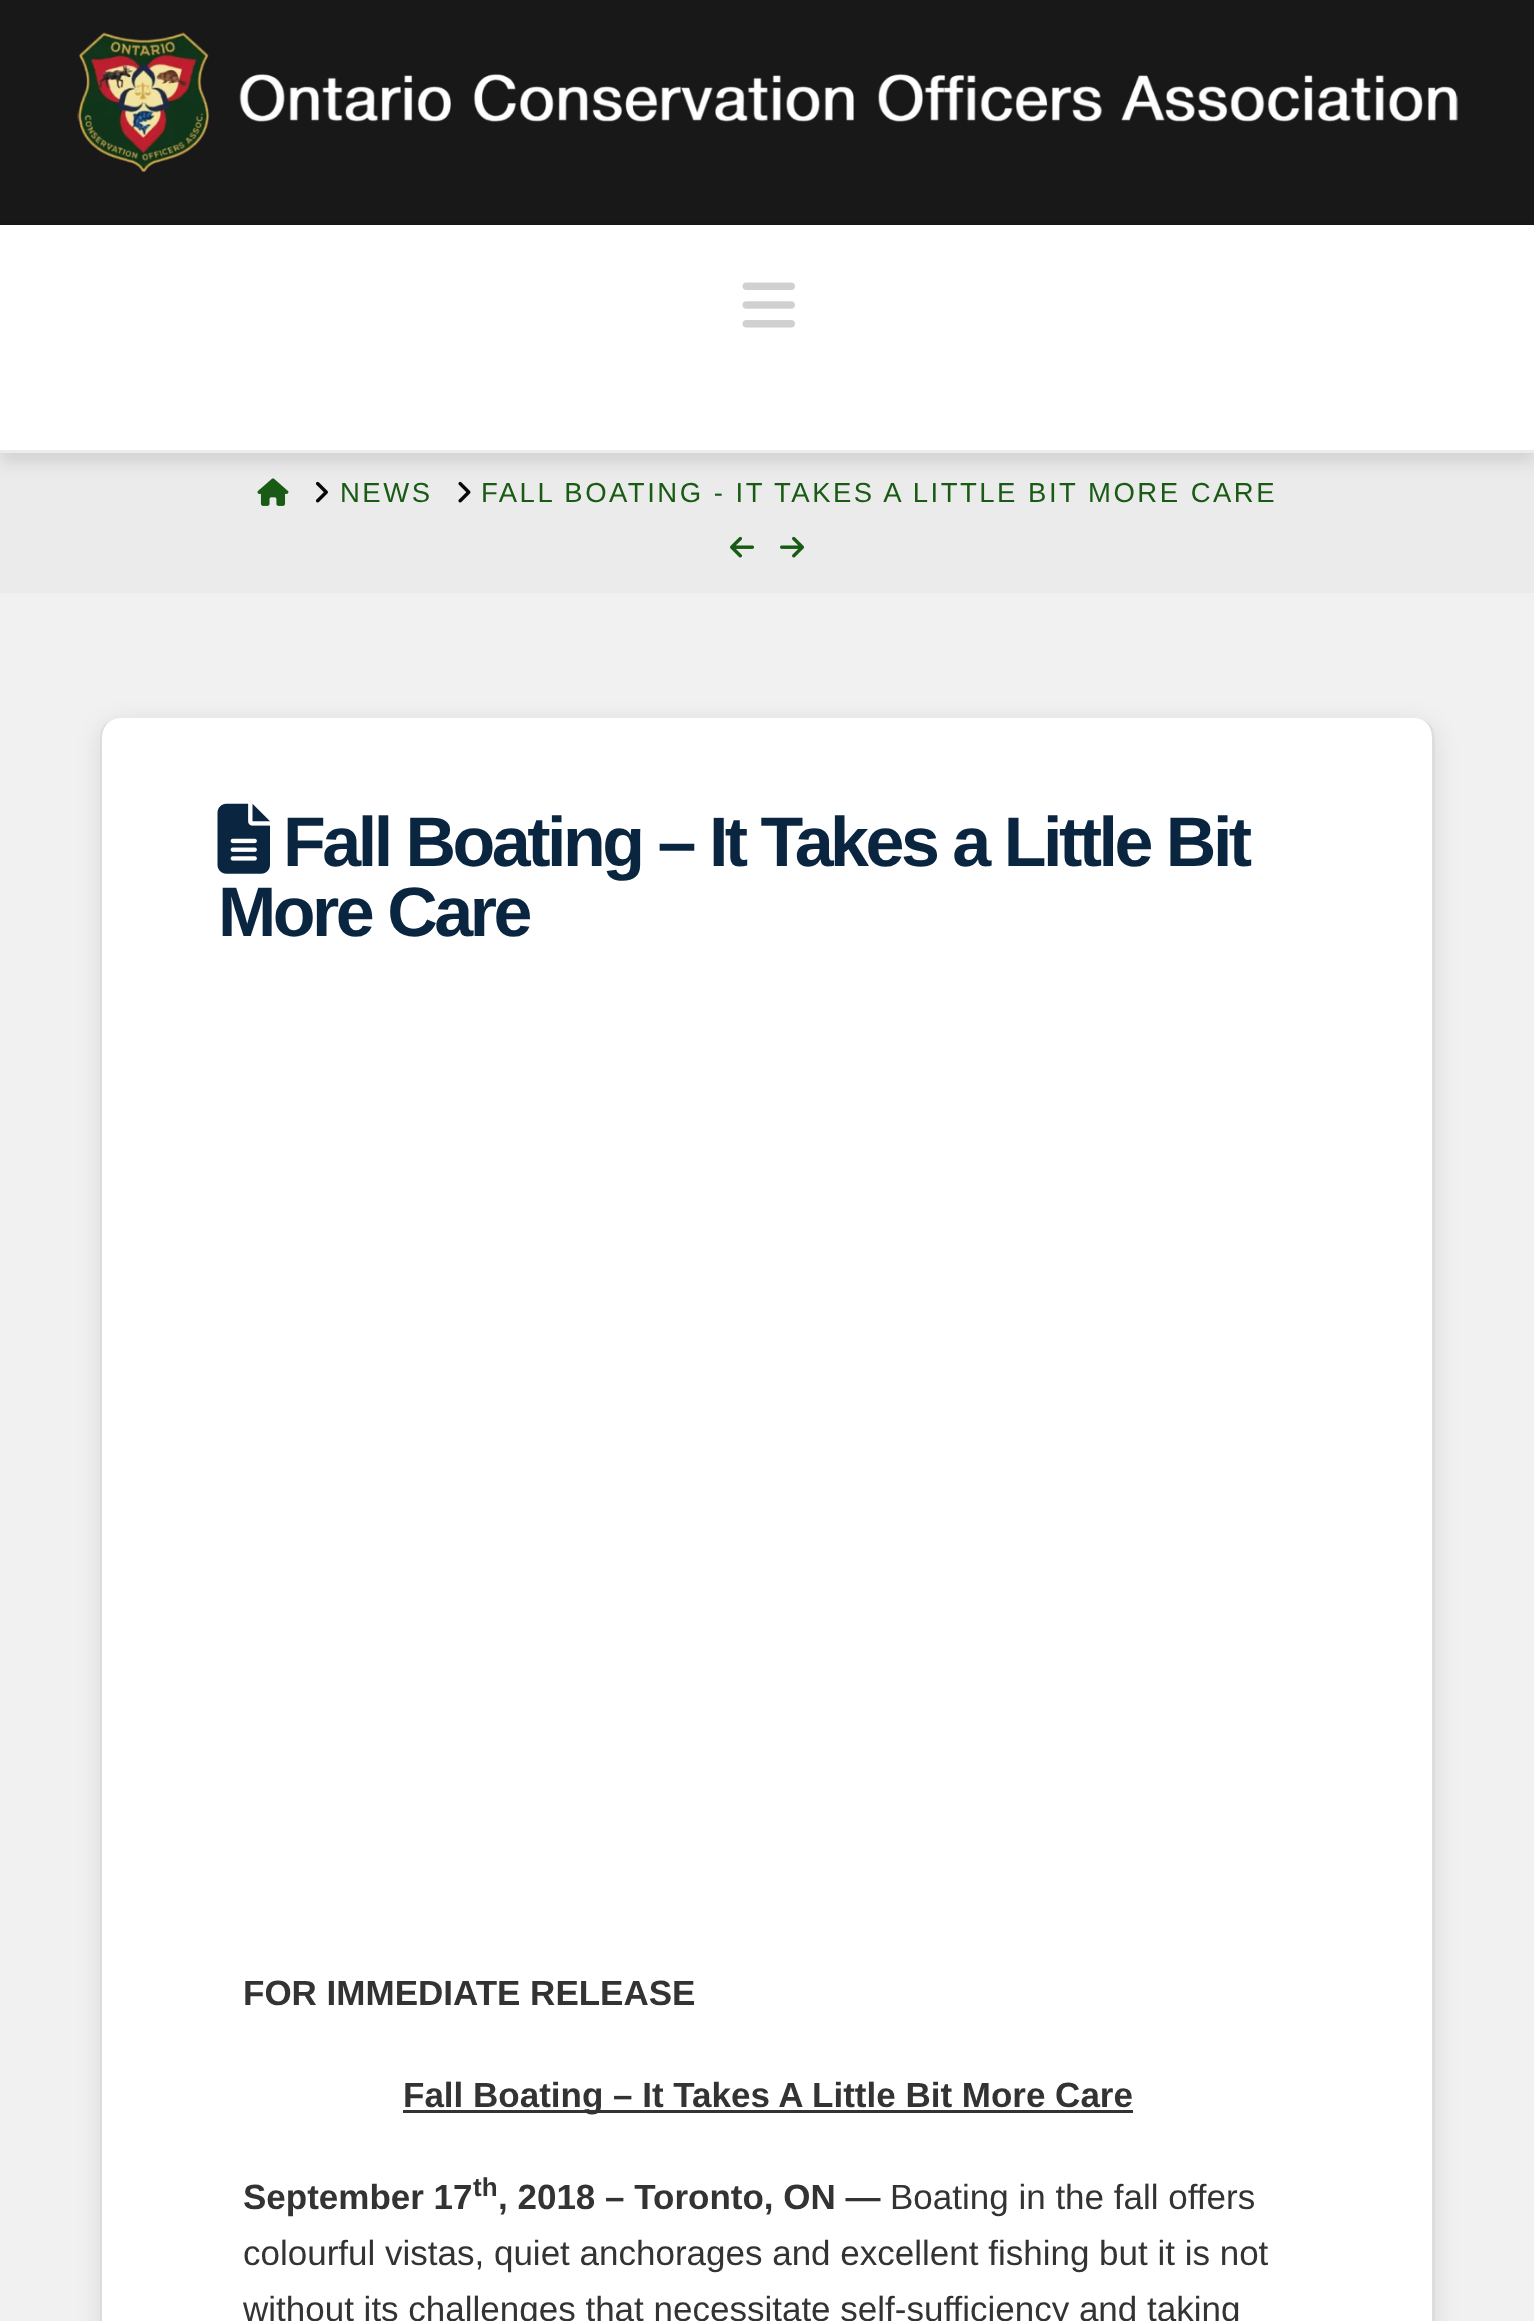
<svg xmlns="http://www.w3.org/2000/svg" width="1534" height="2321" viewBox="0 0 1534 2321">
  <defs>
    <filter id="blur1" x="-50%" y="-200%" width="200%" height="500%"><feGaussianBlur stdDeviation="7.5"/></filter>
    <filter id="blur2" x="-50%" y="-200%" width="200%" height="500%"><feGaussianBlur stdDeviation="12.5"/></filter>
  </defs>
  <rect width="100%" height="100%" fill="#f1f1f1"/>
  <rect x="0" y="0" width="1534" height="223" fill="#181818"/>
  <rect x="0" y="223" width="1534" height="2" fill="#161616"/>
  <image x="77" y="32" width="1381" height="141" href="img1.png"/>
  <rect x="0" y="453" width="1534" height="140" fill="#ebebeb"/>
  <image x="257" y="478" width="32" height="28" href="img3.png"/>
  <image x="315" y="481" width="13" height="22" href="img4.png"/>
  <image x="458" y="481" width="13" height="22" href="img5.png"/>
  <rect x="0" y="235" width="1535" height="228" fill="#000000" fill-opacity="0.1" filter="url(#blur1)"/>
  <rect x="0" y="225" width="1534" height="225" fill="#ffffff"/>
  <rect x="0" y="450" width="1534" height="3" fill="#ececec"/>
  <image x="742" y="282" width="53" height="46" href="img2.png"/>
  <text x="340" y="502" font-family="Liberation Sans" font-size="27.5" letter-spacing="2.5" fill="#195b15">NEWS</text>
  <text x="481" y="502" font-family="Liberation Sans" font-size="27.5" letter-spacing="2.5" fill="#195b15">FALL BOATING - IT TAKES A LITTLE BIT MORE CARE</text>
  <image x="730" y="536" width="24" height="22" href="img6.png"/>
  <image x="780" y="536" width="24" height="22" href="img7.png"/>
  <rect x="100" y="723" width="1335" height="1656" rx="20" fill="#000000" fill-opacity="0.1" filter="url(#blur2)"/>
  <rect x="100" y="718" width="1335" height="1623" rx="20" fill="#ffffff"/>
  <path d="M1435 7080V738C1435 726 1426 718 1415 718C1425 718 1432 726 1432 738V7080C1432 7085 1430 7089 1427 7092L1429 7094C1433 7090 1435 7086 1435 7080Z" fill="#dddddd"/>
  <path d="M120 718C110 718 102 726 102 738V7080C102 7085 104 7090 107 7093L106 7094C102 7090 100 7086 100 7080V738C100 726 109 718 120 718Z" fill="#dddddd"/>
  <image x="217" y="803" width="53" height="71" href="img8.png"/>
  <text x="283" y="866" font-family="Liberation Sans" font-size="70" font-weight="bold" letter-spacing="-3.5" fill="#0a2540">Fall Boating – It Takes a Little Bit</text>
  <text x="218" y="936" font-family="Liberation Sans" font-size="70" font-weight="bold" letter-spacing="-3.5" fill="#0a2540">More Care</text>
  <text x="243" y="2005" font-family="Liberation Sans" font-size="35" font-weight="bold" fill="#333333">FOR IMMEDIATE RELEASE</text>
  <rect x="403" y="2110" width="730" height="3" fill="#333333"/>
  <text x="403" y="2107" font-family="Liberation Sans" font-size="35" font-weight="bold" fill="#333333">Fall Boating – It Takes A Little Bit More Care</text>
  <text x="243" y="2209" font-family="Liberation Sans" font-size="35" font-weight="bold" fill="#333333">September 17</text>
  <text x="473" y="2196" font-family="Liberation Sans" font-size="26" font-weight="bold" fill="#333333">th</text>
  <text x="498" y="2209" font-family="Liberation Sans" font-size="35" font-weight="bold" fill="#333333">, 2018 – Toronto, ON —</text>
  <text x="890" y="2209" font-family="Liberation Sans" font-size="35" fill="#333333">Boating in the fall offers</text>
  <text x="243" y="2265" font-family="Liberation Sans" font-size="35" fill="#333333">colourful vistas, quiet anchorages and excellent fishing but it is not</text>
  <text x="243" y="2321" font-family="Liberation Sans" font-size="35" fill="#333333">without its challenges that necessitate self-sufficiency and taking</text>
</svg>
